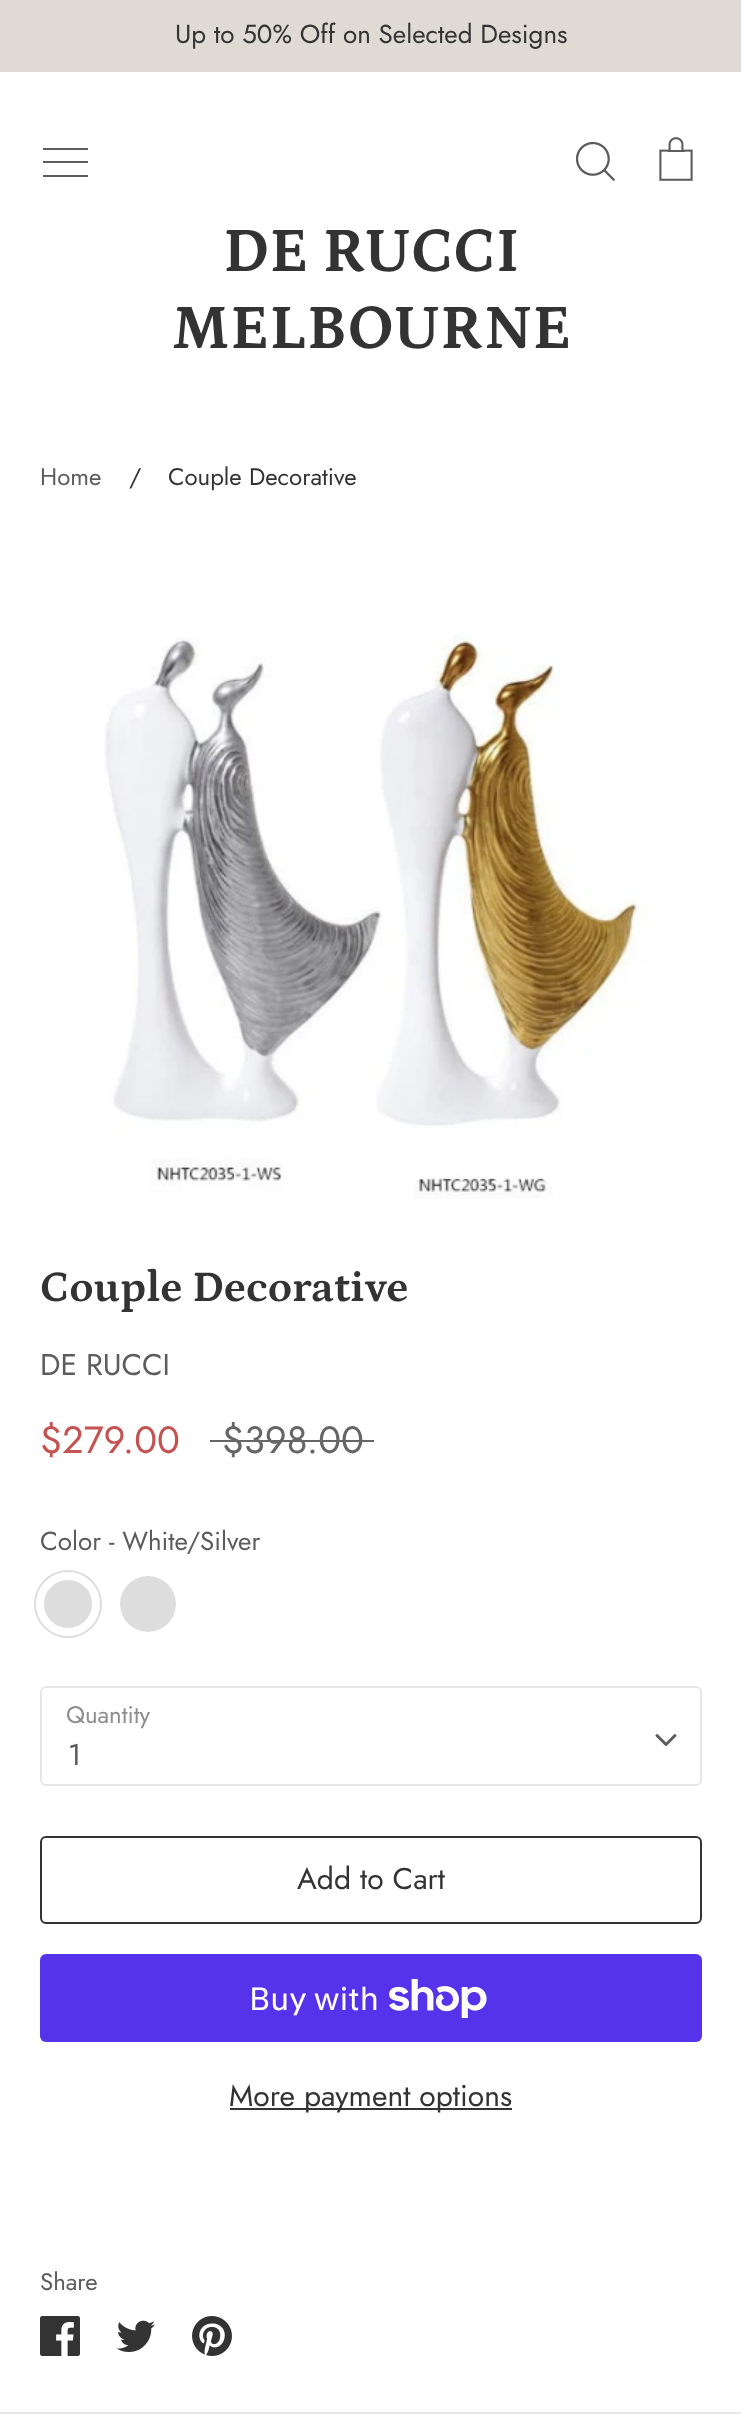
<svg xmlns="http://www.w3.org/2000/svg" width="741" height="2414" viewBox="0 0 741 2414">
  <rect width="100%" height="100%" fill="#ffffff"/>
  <rect x="0" y="0" width="741" height="72" fill="#dfdad3"/>
  <text x="175" y="43" font-family="Jost" font-size="26" fill="#333333">Up to 50% Off on Selected Designs</text>
  <rect x="43" y="148" width="45" height="2" fill="#5c5c5c"/>
  <rect x="43" y="161" width="45" height="2" fill="#5c5c5c"/>
  <rect x="43" y="175" width="45" height="2" fill="#5c5c5c"/>
  <image x="575" y="141" width="40" height="40" href="img1.png"/>
  <image x="659" y="137" width="34" height="44" href="img2.png"/>
  <text x="223" y="271" font-family="Petrona" font-size="64" font-weight="bold" fill="#333333">DE RUCCI</text>
  <text x="171" y="348" font-family="Petrona" font-size="64" font-weight="bold" fill="#333333">MELBOURNE</text>
  <rect x="0" y="2412" width="741" height="2" fill="#e7e7e7"/>
  <text x="40" y="485" font-family="Jost" font-size="24" fill="#5c5c5c">Home</text>
  <text x="129" y="485" font-family="Jost" font-size="24" fill="#333333">/</text>
  <text x="168" y="485" font-family="Jost" font-size="24" fill="#333333">Couple Decorative</text>
  <image x="104" y="634" width="546" height="565" href="img3.png"/>
  <text x="40" y="1301" font-family="Petrona" font-size="44" font-weight="bold" fill="#333333">Couple Decorative</text>
  <text x="40" y="1375" font-family="Jost" font-size="30" fill="#5c5c5c">DE RUCCI</text>
  <text x="40" y="1453" font-family="Jost" font-size="38" fill="#c35251">$279.00</text>
  <text x="222" y="1453" font-family="Jost" font-size="38" fill="#666666">$398.00</text>
  <rect x="210" y="1440" width="164" height="2" fill="#666666"/>
  <text x="40" y="1550" font-family="Jost" font-size="26" fill="#5c5c5c">Color - White/Silver</text>
  <circle cx="68" cy="1604" r="34" fill="#dddddd"/>
  <circle cx="68" cy="1604" r="28" fill="none" stroke="#ffffff" stroke-width="8"/>
  <circle cx="148" cy="1604" r="28" fill="#dddddd"/>
  <text x="66" y="1723" font-family="Jost" font-size="24" fill="#8d8d8d">Quantity</text>
  <rect x="41" y="1687" width="660" height="98" rx="5" fill="none" stroke="#e7e7e7" stroke-width="2"/>
  <path d="M657 1735.5L666 1744.5L675 1735.5" fill="none" stroke="#5c5c5c" stroke-width="3" stroke-linecap="round" stroke-linejoin="round"/>
  <text x="68" y="1765" font-family="Jost" font-size="30" fill="#5c5c5c">1</text>
  <rect x="41" y="1837" width="660" height="86" rx="5" fill="none" stroke="#333333" stroke-width="2"/>
  <text x="297" y="1889" font-family="Jost" font-size="30" fill="#333333">Add to Cart</text>
  <rect x="40" y="1954" width="662" height="88" rx="6" fill="#5433eb"/>
  <text x="249" y="2010" font-family="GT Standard" font-size="32" fill="#ffffff">Buy with</text>
  <image x="389" y="1979" width="98" height="39" href="img4.png"/>
  <rect x="230" y="2108" width="282" height="2" fill="#333333"/>
  <text x="229" y="2106" font-family="Jost" font-size="30" fill="#333333">More payment options</text>
  <text x="40" y="2290" font-family="Jost" font-size="24" fill="#5c5c5c">Share</text>
  <image x="40" y="2316" width="40" height="40" href="img5.png"/>
  <image x="116" y="2320" width="39" height="32" href="img6.png"/>
  <image x="192" y="2316" width="40" height="40" href="img7.png"/>
</svg>
